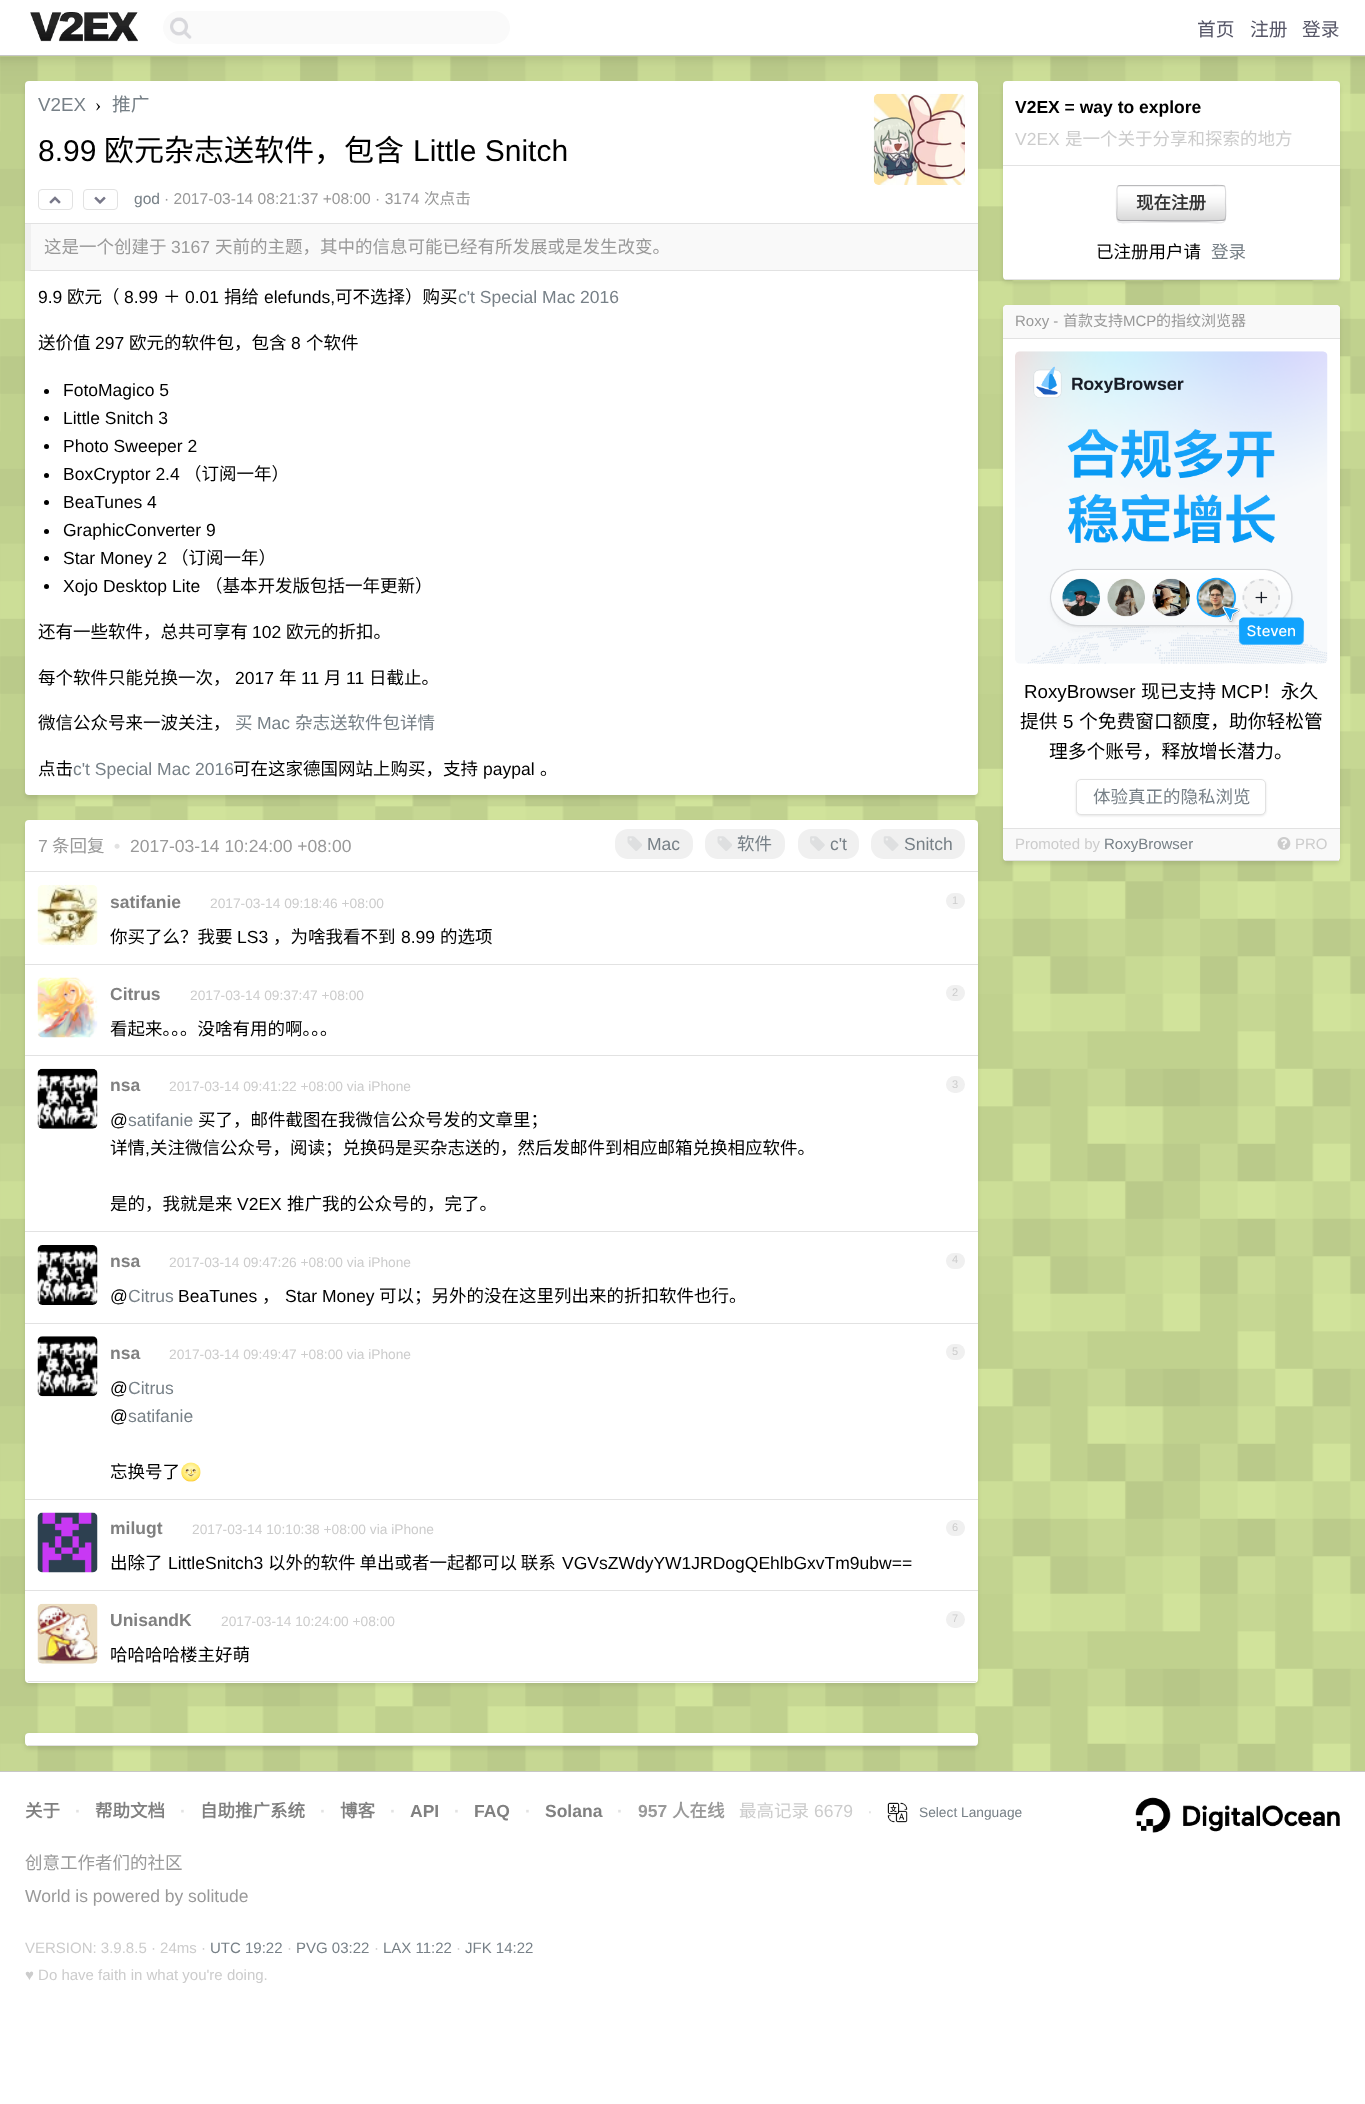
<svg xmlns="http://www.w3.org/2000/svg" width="1365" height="2104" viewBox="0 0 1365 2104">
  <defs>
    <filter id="blur1" x="-50%" y="-200%" width="200%" height="500%"><feGaussianBlur stdDeviation="2"/></filter>
    <filter id="blur2" x="-50%" y="-200%" width="200%" height="500%"><feGaussianBlur stdDeviation="1"/></filter>
  </defs>
  <rect width="100%" height="100%" fill="#ffffff"/>
  <rect x="0" y="55" width="1365" height="1" fill="#c7c7c7"/>
  <image x="30" y="12" width="108" height="30" href="img1.png"/>
  <rect x="163" y="11" width="347" height="33" rx="16.5" fill="#fafafa"/>
  <image x="170" y="17" width="22" height="22" href="img2.png"/>
  <text x="1197" y="36" font-family="Noto Sans CJK SC" font-size="18.75" fill="#555566">首页</text>
  <text x="1250" y="36" font-family="Noto Sans CJK SC" font-size="18.75" fill="#555566">注册</text>
  <text x="1302" y="36" font-family="Noto Sans CJK SC" font-size="18.75" fill="#555566">登录</text>
  <rect x="0" y="56" width="1365" height="1715" fill="#d1e39b"/>
  <image x="0" y="56" width="1365" height="1715" href="img3.png"/>
  <rect x="25" y="84" width="953" height="714" rx="4" fill="#000000" fill-opacity="0.1" filter="url(#blur1)"/>
  <rect x="25" y="81" width="953" height="714" rx="4" fill="#ffffff"/>
  <rect x="25" y="223" width="953" height="1" fill="#e2e2e2"/>
  <text x="38" y="111" font-family="Liberation Sans" font-size="18.75" fill="#778087">V2EX</text>
  <text x="95" y="111" font-family="Liberation Serif" font-size="18.75" fill="#000000">›</text>
  <text x="112" y="111" font-family="Noto Sans CJK SC" font-size="18.75" fill="#778087">推广</text>
  <image x="873" y="93" width="92" height="92" href="img4.png"/>
  <text x="38" y="161" font-family="Liberation Sans" font-size="30" fill="#000000">8.99</text>
  <text x="104" y="161" font-family="Noto Sans CJK SC" font-size="30" fill="#000000">欧元杂志送软件，包含</text>
  <text x="413" y="161" font-family="Liberation Sans" font-size="30" fill="#000000">Little Snitch</text>
  <rect x="38.5" y="189.5" width="34" height="20" rx="3.5" fill="none" stroke="#e2e2e2"/>
  <image x="49" y="196" width="12" height="8" href="img5.png"/>
  <rect x="83.5" y="189.5" width="34" height="20" rx="3.5" fill="none" stroke="#e2e2e2"/>
  <image x="94" y="196" width="12" height="8" href="img6.png"/>
  <text x="134" y="204" font-family="Liberation Sans" font-size="15.6" fill="#778087">god</text>
  <text x="164" y="204" font-family="Liberation Sans" font-size="15.6" fill="#999999">· 2017-03-14 08:21:37 +08:00 · 3174</text>
  <text x="424" y="204" font-family="Noto Sans CJK SC" font-size="15.6" fill="#999999">次点击</text>
  <rect x="25" y="224" width="953" height="47" fill="#f9f9f9"/>
  <path d="M978 271H25L31 270H978Z" fill="#e2e2e2"/>
  <path d="M25 271V224H31V270Z" fill="#f0f0f0"/>
  <text x="44" y="253" font-family="Noto Sans CJK SC" font-size="17.5" fill="#999999">这是一个创建于</text>
  <text x="171" y="253" font-family="Liberation Sans" font-size="17.5" fill="#999999">3167</text>
  <text x="215" y="253" font-family="Noto Sans CJK SC" font-size="17.5" fill="#999999">天前的主题，其中的信息可能已经有所发展或是发生改变。</text>
  <text x="38" y="303" font-family="Liberation Sans" font-size="17.5" fill="#000000">9.9</text>
  <text x="67" y="303" font-family="Noto Sans CJK SC" font-size="17.5" fill="#000000">欧元（</text>
  <text x="124" y="303" font-family="Liberation Sans" font-size="17.5" fill="#000000">8.99</text>
  <text x="163" y="303" font-family="Noto Sans CJK SC" font-size="17.5" fill="#000000">＋</text>
  <text x="185" y="303" font-family="Liberation Sans" font-size="17.5" fill="#000000">0.01</text>
  <text x="224" y="303" font-family="Noto Sans CJK SC" font-size="17.5" fill="#000000">捐给</text>
  <text x="264" y="303" font-family="Liberation Sans" font-size="17.5" fill="#000000">elefunds,</text>
  <text x="335" y="303" font-family="Noto Sans CJK SC" font-size="17.5" fill="#000000">可不选择）购买</text>
  <text x="458" y="303" font-family="Liberation Sans" font-size="17.5" fill="#778087">c't Special Mac 2016</text>
  <text x="38" y="349" font-family="Noto Sans CJK SC" font-size="17.5" fill="#000000">送价值</text>
  <text x="95" y="349" font-family="Liberation Sans" font-size="17.5" fill="#000000">297</text>
  <text x="129" y="349" font-family="Noto Sans CJK SC" font-size="17.5" fill="#000000">欧元的软件包，包含</text>
  <text x="291" y="349" font-family="Liberation Sans" font-size="17.5" fill="#000000">8</text>
  <text x="306" y="349" font-family="Noto Sans CJK SC" font-size="17.5" fill="#000000">个软件</text>
  <circle cx="46.5" cy="391.5" r="2.5" fill="#000000"/>
  <text x="63" y="396" font-family="Liberation Sans" font-size="17.5" fill="#000000">FotoMagico 5</text>
  <circle cx="46.5" cy="418.5" r="2.5" fill="#000000"/>
  <text x="63" y="424" font-family="Liberation Sans" font-size="17.5" fill="#000000">Little Snitch 3</text>
  <circle cx="46.5" cy="446.5" r="2.5" fill="#000000"/>
  <text x="63" y="452" font-family="Liberation Sans" font-size="17.5" fill="#000000">Photo Sweeper 2</text>
  <circle cx="46.5" cy="475.5" r="2.5" fill="#000000"/>
  <text x="63" y="480" font-family="Liberation Sans" font-size="17.5" fill="#000000">BoxCryptor 2.4</text>
  <text x="184" y="480" font-family="Noto Sans CJK SC" font-size="17.5" fill="#000000">（订阅一年）</text>
  <circle cx="46.5" cy="502.5" r="2.5" fill="#000000"/>
  <text x="63" y="508" font-family="Liberation Sans" font-size="17.5" fill="#000000">BeaTunes 4</text>
  <circle cx="46.5" cy="531.5" r="2.5" fill="#000000"/>
  <text x="63" y="536" font-family="Liberation Sans" font-size="17.5" fill="#000000">GraphicConverter 9</text>
  <circle cx="46.5" cy="558.5" r="2.5" fill="#000000"/>
  <text x="63" y="564" font-family="Liberation Sans" font-size="17.5" fill="#000000">Star Money 2</text>
  <text x="171" y="564" font-family="Noto Sans CJK SC" font-size="17.5" fill="#000000">（订阅一年）</text>
  <circle cx="46.5" cy="586.5" r="2.5" fill="#000000"/>
  <text x="63" y="592" font-family="Liberation Sans" font-size="17.5" fill="#000000">Xojo Desktop Lite</text>
  <text x="205" y="592" font-family="Noto Sans CJK SC" font-size="17.5" fill="#000000">（基本开发版包括一年更新）</text>
  <text x="38" y="638" font-family="Noto Sans CJK SC" font-size="17.5" fill="#000000">还有一些软件，总共可享有</text>
  <text x="252" y="638" font-family="Liberation Sans" font-size="17.5" fill="#000000">102</text>
  <text x="286" y="638" font-family="Noto Sans CJK SC" font-size="17.5" fill="#000000">欧元的折扣。</text>
  <text x="38" y="684" font-family="Noto Sans CJK SC" font-size="17.5" fill="#000000">每个软件只能兑换一次，</text>
  <text x="235" y="684" font-family="Liberation Sans" font-size="17.5" fill="#000000">2017</text>
  <text x="279" y="684" font-family="Noto Sans CJK SC" font-size="17.5" fill="#000000">年</text>
  <text x="301" y="684" font-family="Liberation Sans" font-size="17.5" fill="#000000">11</text>
  <text x="324" y="684" font-family="Noto Sans CJK SC" font-size="17.5" fill="#000000">月</text>
  <text x="346" y="684" font-family="Liberation Sans" font-size="17.5" fill="#000000">11</text>
  <text x="369" y="684" font-family="Noto Sans CJK SC" font-size="17.5" fill="#000000">日截止。</text>
  <text x="38" y="729" font-family="Noto Sans CJK SC" font-size="17.5" fill="#000000">微信公众号来一波关注，</text>
  <text x="235" y="729" font-family="Noto Sans CJK SC" font-size="17.5" fill="#778087">买</text>
  <text x="257" y="729" font-family="Liberation Sans" font-size="17.5" fill="#778087">Mac</text>
  <text x="295" y="729" font-family="Noto Sans CJK SC" font-size="17.5" fill="#778087">杂志送软件包详情</text>
  <text x="38" y="775" font-family="Noto Sans CJK SC" font-size="17.5" fill="#000000">点击</text>
  <text x="73" y="775" font-family="Liberation Sans" font-size="17.5" fill="#778087">c't Special Mac 2016</text>
  <text x="233" y="775" font-family="Noto Sans CJK SC" font-size="17.5" fill="#000000">可在这家德国网站上购买，支持</text>
  <text x="483" y="775" font-family="Liberation Sans" font-size="17.5" fill="#000000">paypal</text>
  <text x="540" y="775" font-family="Noto Sans CJK SC" font-size="17.5" fill="#000000">。</text>
  <rect x="25" y="823" width="953" height="862" rx="4" fill="#000000" fill-opacity="0.1" filter="url(#blur1)"/>
  <rect x="25" y="820" width="953" height="863" rx="4" fill="#ffffff"/>
  <rect x="28" y="1681" width="948" height="1" fill="#e2e2e2"/>
  <rect x="25" y="871" width="953" height="1" fill="#e2e2e2"/>
  <text x="38" y="852" font-family="Liberation Sans" font-size="17.5" fill="#999999">7</text>
  <text x="52" y="852" font-family="Noto Sans CJK SC" font-size="17.5" fill="#999999">条回复</text>
  <text x="114" y="852" font-family="Liberation Sans" font-size="17.5" font-weight="bold" fill="#e2e2e2">•</text>
  <text x="130" y="852" font-family="Liberation Sans" font-size="17.5" fill="#999999">2017-03-14 10:24:00 +08:00</text>
  <rect x="615" y="829" width="78" height="30" rx="13" fill="#f0f0f0"/>
  <image x="627" y="836" width="15" height="15" href="img7.png"/>
  <text x="647" y="850" font-family="Liberation Sans" font-size="17.5" fill="#778087">Mac</text>
  <rect x="705" y="829" width="80" height="30" rx="13" fill="#f0f0f0"/>
  <image x="717" y="836" width="15" height="15" href="img7.png"/>
  <text x="737" y="850" font-family="Noto Sans CJK SC" font-size="17.5" fill="#778087">软件</text>
  <rect x="798" y="829" width="61" height="30" rx="13" fill="#f0f0f0"/>
  <image x="810" y="836" width="15" height="15" href="img8.png"/>
  <text x="830" y="850" font-family="Liberation Sans" font-size="17.5" fill="#778087">c't</text>
  <rect x="871" y="829" width="94" height="30" rx="13" fill="#f0f0f0"/>
  <image x="883" y="836" width="16" height="15" href="img9.png"/>
  <text x="904" y="850" font-family="Liberation Sans" font-size="17.5" fill="#778087">Snitch</text>
  <rect x="25" y="964" width="953" height="1" fill="#e2e2e2"/>
  <image x="37" y="885" width="61" height="60" href="img10.png"/>
  <text x="110" y="908" font-family="Liberation Sans" font-size="17.5" font-weight="bold" fill="#808080">satifanie</text>
  <text x="210" y="908" font-family="Liberation Sans" font-size="13.75" fill="#cccccc">2017-03-14 09:18:46 +08:00</text>
  <rect x="946" y="893" width="19" height="16" rx="8" fill="#f0f0f0"/>
  <text x="952" y="904" font-family="Liberation Sans" font-size="11" fill="#cccccc">1</text>
  <text x="110" y="943" font-family="Noto Sans CJK SC" font-size="17.5" fill="#000000">你买了么？我要</text>
  <text x="237" y="943" font-family="Liberation Sans" font-size="17.5" fill="#000000">LS3</text>
  <text x="273" y="943" font-family="Noto Sans CJK SC" font-size="17.5" fill="#000000">，为啥我看不到</text>
  <text x="401" y="943" font-family="Liberation Sans" font-size="17.5" fill="#000000">8.99</text>
  <text x="440" y="943" font-family="Noto Sans CJK SC" font-size="17.5" fill="#000000">的选项</text>
  <rect x="25" y="1055" width="953" height="1" fill="#e2e2e2"/>
  <image x="37" y="977" width="61" height="61" href="img11.png"/>
  <text x="110" y="1000" font-family="Liberation Sans" font-size="17.5" font-weight="bold" fill="#808080">Citrus</text>
  <text x="190" y="1000" font-family="Liberation Sans" font-size="13.75" fill="#cccccc">2017-03-14 09:37:47 +08:00</text>
  <rect x="946" y="985" width="19" height="16" rx="8" fill="#f0f0f0"/>
  <text x="952" y="996" font-family="Liberation Sans" font-size="11" fill="#cccccc">2</text>
  <text x="110" y="1035" font-family="Noto Sans CJK SC" font-size="17.5" fill="#000000">看起来。。。没啥有用的啊。。。</text>
  <rect x="25" y="1231" width="953" height="1" fill="#e2e2e2"/>
  <image x="37" y="1068" width="61" height="61" href="img12.png"/>
  <text x="110" y="1091" font-family="Liberation Sans" font-size="17.5" font-weight="bold" fill="#808080">nsa</text>
  <text x="169" y="1091" font-family="Liberation Sans" font-size="13.75" fill="#cccccc">2017-03-14 09:41:22 +08:00 via iPhone</text>
  <rect x="946" y="1076" width="19" height="17" rx="8.5" fill="#f0f0f0"/>
  <text x="952" y="1088" font-family="Liberation Sans" font-size="11" fill="#cccccc">3</text>
  <text x="110" y="1126" font-family="Liberation Sans" font-size="17.5" fill="#000000">@</text>
  <text x="128" y="1126" font-family="Liberation Sans" font-size="17.5" fill="#778087">satifanie</text>
  <text x="198" y="1126" font-family="Noto Sans CJK SC" font-size="17.5" fill="#000000">买了，邮件截图在我微信公众号发的文章里；</text>
  <text x="110" y="1154" font-family="Noto Sans CJK SC" font-size="17.5" fill="#000000">详情</text>
  <text x="145" y="1154" font-family="Liberation Sans" font-size="17.5" fill="#000000">,</text>
  <text x="150" y="1154" font-family="Noto Sans CJK SC" font-size="17.5" fill="#000000">关注微信公众号，阅读；兑换码是买杂志送的，然后发邮件到相应邮箱兑换相应软件。</text>
  <text x="110" y="1210" font-family="Noto Sans CJK SC" font-size="17.5" fill="#000000">是的，我就是来</text>
  <text x="237" y="1210" font-family="Liberation Sans" font-size="17.5" fill="#000000">V2EX</text>
  <text x="287" y="1210" font-family="Noto Sans CJK SC" font-size="17.5" fill="#000000">推广我的公众号的，完了。</text>
  <rect x="25" y="1323" width="953" height="1" fill="#e2e2e2"/>
  <image x="37" y="1245" width="61" height="60" href="img13.png"/>
  <text x="110" y="1267" font-family="Liberation Sans" font-size="17.5" font-weight="bold" fill="#808080">nsa</text>
  <text x="169" y="1267" font-family="Liberation Sans" font-size="13.75" fill="#cccccc">2017-03-14 09:47:26 +08:00 via iPhone</text>
  <rect x="946" y="1253" width="19" height="16" rx="8" fill="#f0f0f0"/>
  <text x="952" y="1263" font-family="Liberation Sans" font-size="11" fill="#cccccc">4</text>
  <text x="110" y="1302" font-family="Liberation Sans" font-size="17.5" fill="#000000">@</text>
  <text x="128" y="1302" font-family="Liberation Sans" font-size="17.5" fill="#778087">Citrus</text>
  <text x="178" y="1302" font-family="Liberation Sans" font-size="17.5" fill="#000000">BeaTunes</text>
  <text x="262" y="1302" font-family="Noto Sans CJK SC" font-size="17.5" fill="#000000">，</text>
  <text x="285" y="1302" font-family="Liberation Sans" font-size="17.5" fill="#000000">Star Money</text>
  <text x="379" y="1302" font-family="Noto Sans CJK SC" font-size="17.5" fill="#000000">可以；另外的没在这里列出来的折扣软件也行。</text>
  <rect x="25" y="1499" width="953" height="1" fill="#e2e2e2"/>
  <image x="37" y="1336" width="61" height="61" href="img14.png"/>
  <text x="110" y="1359" font-family="Liberation Sans" font-size="17.5" font-weight="bold" fill="#808080">nsa</text>
  <text x="169" y="1359" font-family="Liberation Sans" font-size="13.75" fill="#cccccc">2017-03-14 09:49:47 +08:00 via iPhone</text>
  <rect x="946" y="1344" width="19" height="16" rx="8" fill="#f0f0f0"/>
  <text x="952" y="1355" font-family="Liberation Sans" font-size="11" fill="#cccccc">5</text>
  <text x="110" y="1394" font-family="Liberation Sans" font-size="17.5" fill="#000000">@</text>
  <text x="128" y="1394" font-family="Liberation Sans" font-size="17.5" fill="#778087">Citrus</text>
  <text x="110" y="1422" font-family="Liberation Sans" font-size="17.5" fill="#000000">@</text>
  <text x="128" y="1422" font-family="Liberation Sans" font-size="17.5" fill="#778087">satifanie</text>
  <text x="110" y="1478" font-family="Noto Sans CJK SC" font-size="17.5" fill="#000000">忘换号了</text>
  <text x="180" y="1478" font-family="Noto Color Emoji" font-size="17.5" fill="#000000">🌝</text>
  <rect x="25" y="1590" width="953" height="1" fill="#e2e2e2"/>
  <image x="37" y="1512" width="61" height="61" href="img15.png"/>
  <text x="110" y="1534" font-family="Liberation Sans" font-size="17.5" font-weight="bold" fill="#808080">milugt</text>
  <text x="192" y="1534" font-family="Liberation Sans" font-size="13.75" fill="#cccccc">2017-03-14 10:10:38 +08:00 via iPhone</text>
  <rect x="946" y="1520" width="19" height="16" rx="8" fill="#f0f0f0"/>
  <text x="952" y="1531" font-family="Liberation Sans" font-size="11" fill="#cccccc">6</text>
  <text x="110" y="1569" font-family="Noto Sans CJK SC" font-size="17.5" fill="#000000">出除了</text>
  <text x="168" y="1569" font-family="Liberation Sans" font-size="17.5" fill="#000000">LittleSnitch3</text>
  <text x="268" y="1569" font-family="Noto Sans CJK SC" font-size="17.5" fill="#000000">以外的软件 单出或者一起都可以 联系</text>
  <text x="562" y="1569" font-family="Liberation Sans" font-size="17.5" fill="#000000">VGVsZWdyYW1JRDogQEhlbGxvTm9ubw==</text>
  <image x="37" y="1603" width="61" height="61" href="img16.png"/>
  <text x="110" y="1626" font-family="Liberation Sans" font-size="17.5" font-weight="bold" fill="#808080">UnisandK</text>
  <text x="221" y="1626" font-family="Liberation Sans" font-size="13.75" fill="#cccccc">2017-03-14 10:24:00 +08:00</text>
  <rect x="946" y="1611" width="19" height="17" rx="8.5" fill="#f0f0f0"/>
  <text x="952" y="1622" font-family="Liberation Sans" font-size="11" fill="#cccccc">7</text>
  <text x="110" y="1661" font-family="Noto Sans CJK SC" font-size="17.5" fill="#000000">哈哈哈哈楼主好萌</text>
  <rect x="25" y="1735" width="953" height="14" rx="4" fill="#000000" fill-opacity="0.1" filter="url(#blur1)"/>
  <rect x="25" y="1733" width="953" height="13" rx="4" fill="#ffffff"/>
  <rect x="28" y="1745" width="948" height="1" fill="#e2e2e2"/>
  <rect x="1003" y="84" width="337" height="199" rx="4" fill="#000000" fill-opacity="0.1" filter="url(#blur1)"/>
  <rect x="1003" y="81" width="337" height="199" rx="4" fill="#ffffff"/>
  <rect x="1005" y="279" width="334" height="1" fill="#e2e2e2"/>
  <rect x="1003" y="165" width="337" height="1" fill="#e2e2e2"/>
  <text x="1015" y="113" font-family="Liberation Sans" font-size="17.5" font-weight="bold" fill="#000000">V2EX = way to explore</text>
  <text x="1015" y="145" font-family="Liberation Sans" font-size="17.5" fill="#cccccc">V2EX</text>
  <text x="1065" y="145" font-family="Noto Sans CJK SC" font-size="17.5" fill="#cccccc">是一个关于分享和探索的地方</text>
  <path d="M1116 189V209C1116 227 1116 223 1137 223H1205C1213 223 1226 226 1226 219L1224 221C1219 224 1212 221 1205 221H1120L1117 220C1115 218 1116 193 1116 189Z" fill="#ececed"/>
  <rect x="1116" y="185" width="110" height="36" rx="4" fill="#ffffff"/>
  <image x="1116" y="185" width="110" height="36" href="img17.png"/>
  <path d="M1224.5 219.5L1224 220C1222 221.5 1146.5 220.5 1137 220.5H1120L1118 219.5" fill="none" stroke="#a8a8ac" stroke-width="1.2"/>
  <path d="M1118 219.5C1115.5 217.5 1117 210.5 1117 208V193.5C1117 191 1116 185.5 1120 185.5H1205.5C1229 185.5 1225.5 181.5 1225.5 203C1225.5 206 1227 217.5 1224.5 219.5" fill="none" stroke="#50505a" stroke-opacity="0.2" stroke-width="1.2"/>
  <text x="1136" y="209" font-family="Noto Sans CJK SC" font-size="17.5" font-weight="bold" fill="#333333">现在注册</text>
  <text x="1096" y="258" font-family="Noto Sans CJK SC" font-size="17.5" fill="#000000">已注册用户请</text>
  <text x="1211" y="258" font-family="Noto Sans CJK SC" font-size="17.5" fill="#778087">登录</text>
  <rect x="1003" y="308" width="337" height="556" rx="4" fill="#000000" fill-opacity="0.1" filter="url(#blur1)"/>
  <rect x="1003" y="305" width="337" height="556" rx="4" fill="#ffffff"/>
  <rect x="1005" y="860" width="334" height="1" fill="#e2e2e2"/>
  <path d="M1007 305H1336C1338 305 1340 307 1340 309V339H1003V309C1003 307 1005 305 1007 305Z" fill="#f9f9f9"/>
  <rect x="1003" y="338" width="337" height="1" fill="#e2e2e2"/>
  <text x="1015" y="326" font-family="Liberation Sans" font-size="15" fill="#999999">Roxy -</text>
  <text x="1063" y="326" font-family="Noto Sans CJK SC" font-size="15" fill="#999999">首款支持</text>
  <text x="1123" y="326" font-family="Liberation Sans" font-size="15" fill="#999999">MCP</text>
  <text x="1156" y="326" font-family="Noto Sans CJK SC" font-size="15" fill="#999999">的指纹浏览器</text>
  <image x="1015" y="351" width="313" height="313" href="img18.png"/>
  <text x="1024" y="698" font-family="Liberation Sans" font-size="18.75" fill="#000000">RoxyBrowser</text>
  <text x="1141" y="698" font-family="Noto Sans CJK SC" font-size="18.75" fill="#000000">现已支持</text>
  <text x="1221" y="698" font-family="Liberation Sans" font-size="18.75" fill="#000000">MCP</text>
  <text x="1262" y="698" font-family="Noto Sans CJK SC" font-size="18.75" fill="#000000">！永久</text>
  <text x="1020" y="728" font-family="Noto Sans CJK SC" font-size="18.75" fill="#000000">提供</text>
  <text x="1063" y="728" font-family="Liberation Sans" font-size="18.75" fill="#000000">5</text>
  <text x="1079" y="728" font-family="Noto Sans CJK SC" font-size="18.75" fill="#000000">个免费窗口额度，助你轻松管</text>
  <text x="1049" y="758" font-family="Noto Sans CJK SC" font-size="18.75" fill="#000000">理多个账号，释放增长潜力。</text>
  <rect x="1003" y="828" width="337" height="1" fill="#e2e2e2"/>
  <rect x="1076" y="780" width="190" height="36" rx="5" fill="#000000" fill-opacity="0.1" filter="url(#blur2)"/>
  <rect x="1076.5" y="779.5" width="189" height="35" rx="4.5" fill="#ffffff" stroke="#e2e2e2"/>
  <text x="1093" y="803" font-family="Noto Sans CJK SC" font-size="17.5" fill="#778087">体验真正的隐私浏览</text>
  <path d="M1003 829H1340V856C1340 858 1338 860 1336 860H1007C1005 860 1003 858 1003 856Z" fill="#f9f9f9"/>
  <text x="1015" y="849" font-family="Liberation Sans" font-size="15" fill="#cccccc">Promoted by</text>
  <text x="1104" y="849" font-family="Liberation Sans" font-size="15" fill="#778087">RoxyBrowser</text>
  <image x="1277" y="837" width="14" height="13" href="img19.png"/>
  <text x="1295" y="849" font-family="Liberation Sans" font-size="15" fill="#cccccc">PRO</text>
  <rect x="0" y="1771" width="1365" height="1" fill="#c7c7c7"/>
  <text x="25" y="1817" font-family="Noto Sans CJK SC" font-size="17.5" font-weight="bold" fill="#808080">关于</text>
  <text x="75" y="1817" font-family="Liberation Sans" font-size="17.5" font-weight="bold" fill="#e2e2e2">·</text>
  <text x="95" y="1817" font-family="Noto Sans CJK SC" font-size="17.5" font-weight="bold" fill="#808080">帮助文档</text>
  <text x="180" y="1817" font-family="Liberation Sans" font-size="17.5" font-weight="bold" fill="#e2e2e2">·</text>
  <text x="200" y="1817" font-family="Noto Sans CJK SC" font-size="17.5" font-weight="bold" fill="#808080">自助推广系统</text>
  <text x="320" y="1817" font-family="Liberation Sans" font-size="17.5" font-weight="bold" fill="#e2e2e2">·</text>
  <text x="340" y="1817" font-family="Noto Sans CJK SC" font-size="17.5" font-weight="bold" fill="#808080">博客</text>
  <text x="390" y="1817" font-family="Liberation Sans" font-size="17.5" font-weight="bold" fill="#e2e2e2">·</text>
  <text x="410" y="1817" font-family="Liberation Sans" font-size="17.5" font-weight="bold" fill="#808080">API</text>
  <text x="454" y="1817" font-family="Liberation Sans" font-size="17.5" font-weight="bold" fill="#e2e2e2">·</text>
  <text x="474" y="1817" font-family="Liberation Sans" font-size="17.5" font-weight="bold" fill="#808080">FAQ</text>
  <text x="525" y="1817" font-family="Liberation Sans" font-size="17.5" font-weight="bold" fill="#e2e2e2">·</text>
  <text x="545" y="1817" font-family="Liberation Sans" font-size="17.5" font-weight="bold" fill="#808080">Solana</text>
  <text x="617" y="1817" font-family="Liberation Sans" font-size="17.5" font-weight="bold" fill="#e2e2e2">·</text>
  <text x="638" y="1817" font-family="Liberation Sans" font-size="17.5" font-weight="bold" fill="#999999">957</text>
  <text x="672" y="1817" font-family="Noto Sans CJK SC" font-size="17.5" font-weight="bold" fill="#999999">人在线</text>
  <text x="739" y="1817" font-family="Noto Sans CJK SC" font-size="17.5" fill="#cccccc">最高记录</text>
  <text x="814" y="1817" font-family="Liberation Sans" font-size="17.5" fill="#cccccc">6679</text>
  <text x="867" y="1817" font-family="Liberation Sans" font-size="17.5" fill="#e2e2e2">·</text>
  <image x="887" y="1802" width="21" height="21" href="img20.png"/>
  <text x="919" y="1817" font-family="Liberation Sans" font-size="13.75" fill="#778087">Select Language</text>
  <image x="1135" y="1797" width="205" height="36" href="img21.png"/>
  <text x="25" y="1869" font-family="Noto Sans CJK SC" font-size="17.5" fill="#999999">创意工作者们的社区</text>
  <text x="25" y="1902" font-family="Liberation Sans" font-size="17.5" fill="#999999">World is powered by solitude</text>
  <text x="25" y="1953" font-family="Liberation Sans" font-size="15" fill="#cccccc">VERSION: 3.9.8.5 · 24ms ·</text>
  <text x="210" y="1953" font-family="Liberation Sans" font-size="15" fill="#778087">UTC 19:22</text>
  <text x="287" y="1953" font-family="Liberation Sans" font-size="15" fill="#cccccc">·</text>
  <text x="296" y="1953" font-family="Liberation Sans" font-size="15" fill="#778087">PVG 03:22</text>
  <text x="374" y="1953" font-family="Liberation Sans" font-size="15" fill="#cccccc">·</text>
  <text x="383" y="1953" font-family="Liberation Sans" font-size="15" fill="#778087">LAX 11:22</text>
  <text x="456" y="1953" font-family="Liberation Sans" font-size="15" fill="#cccccc">·</text>
  <text x="465" y="1953" font-family="Liberation Sans" font-size="15" fill="#778087">JFK 14:22</text>
  <text x="25" y="1980" font-family="Liberation Sans" font-size="15" fill="#cccccc">♥ Do have faith in what you're doing.</text>
</svg>
